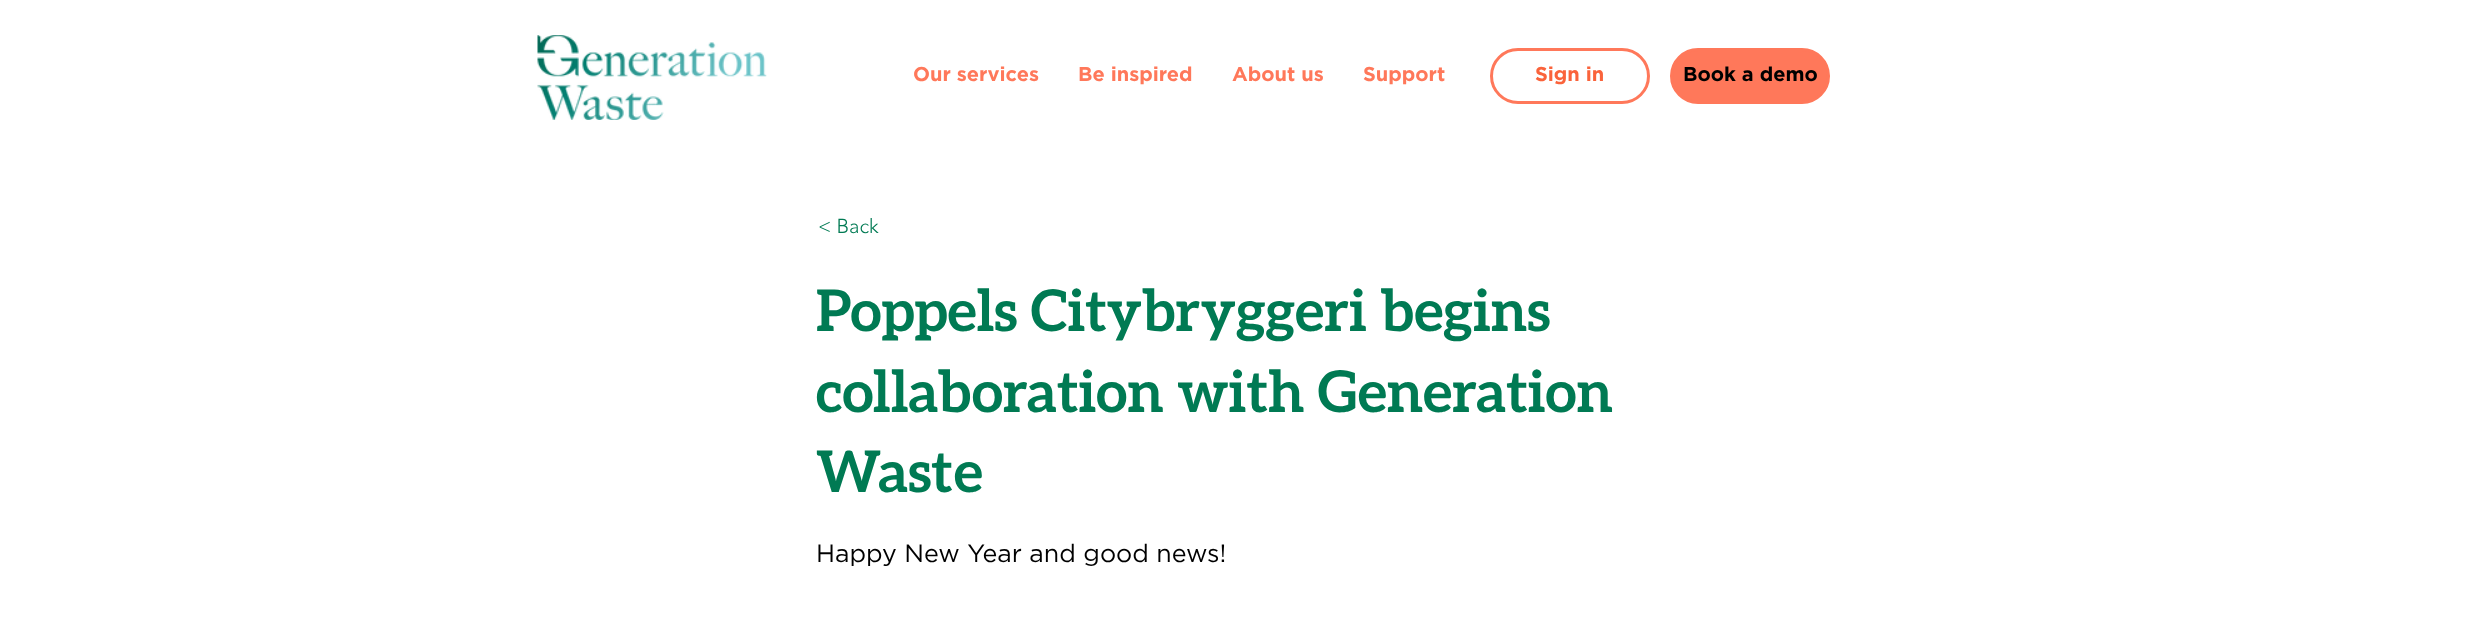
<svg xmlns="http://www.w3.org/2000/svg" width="2482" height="640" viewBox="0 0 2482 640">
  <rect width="100%" height="100%" fill="#ffffff"/>
  <image x="537" y="35" width="230" height="85" href="img1.png"/>
  <text x="913" y="81" font-family="Gotham" font-size="20" font-weight="bold" fill="#ff785a">Our services</text>
  <text x="1078" y="81" font-family="Gotham" font-size="20" font-weight="bold" fill="#ff785a">Be inspired</text>
  <text x="1232" y="81" font-family="Gotham" font-size="20" font-weight="bold" fill="#ff785a">About us</text>
  <text x="1363" y="81" font-family="Gotham" font-size="20" font-weight="bold" fill="#ff785a">Support</text>
  <rect x="1491.5" y="49.5" width="157" height="53" rx="26.5" fill="none" stroke="#ff785a" stroke-width="3"/>
  <text x="1535" y="81" font-family="Gotham" font-size="20" font-weight="bold" fill="#fa633b">Sign in</text>
  <rect x="1671.5" y="49.5" width="157" height="53" rx="26.5" fill="#ff785a" stroke="#ff785a" stroke-width="3"/>
  <text x="1683" y="81" font-family="Gotham" font-size="20" font-weight="bold" fill="#000000">Book a demo</text>
  <text x="818" y="233" font-family="'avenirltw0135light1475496'" font-size="20" font-weight="300" fill="#007a53">&lt; Back</text>
  <text x="816" y="331" font-family="Aleo" font-size="57.5" font-weight="bold" fill="#007a53">Poppels Citybryggeri begins</text>
  <text x="816" y="412" font-family="Aleo" font-size="57.5" font-weight="bold" fill="#007a53">collaboration with Generation</text>
  <text x="816" y="492" font-family="Aleo" font-size="57.5" font-weight="bold" fill="#007a53">Waste</text>
  <text x="816" y="562" font-family="Gotham" font-size="25" fill="#000000">Happy New Year and good news!</text>
</svg>
